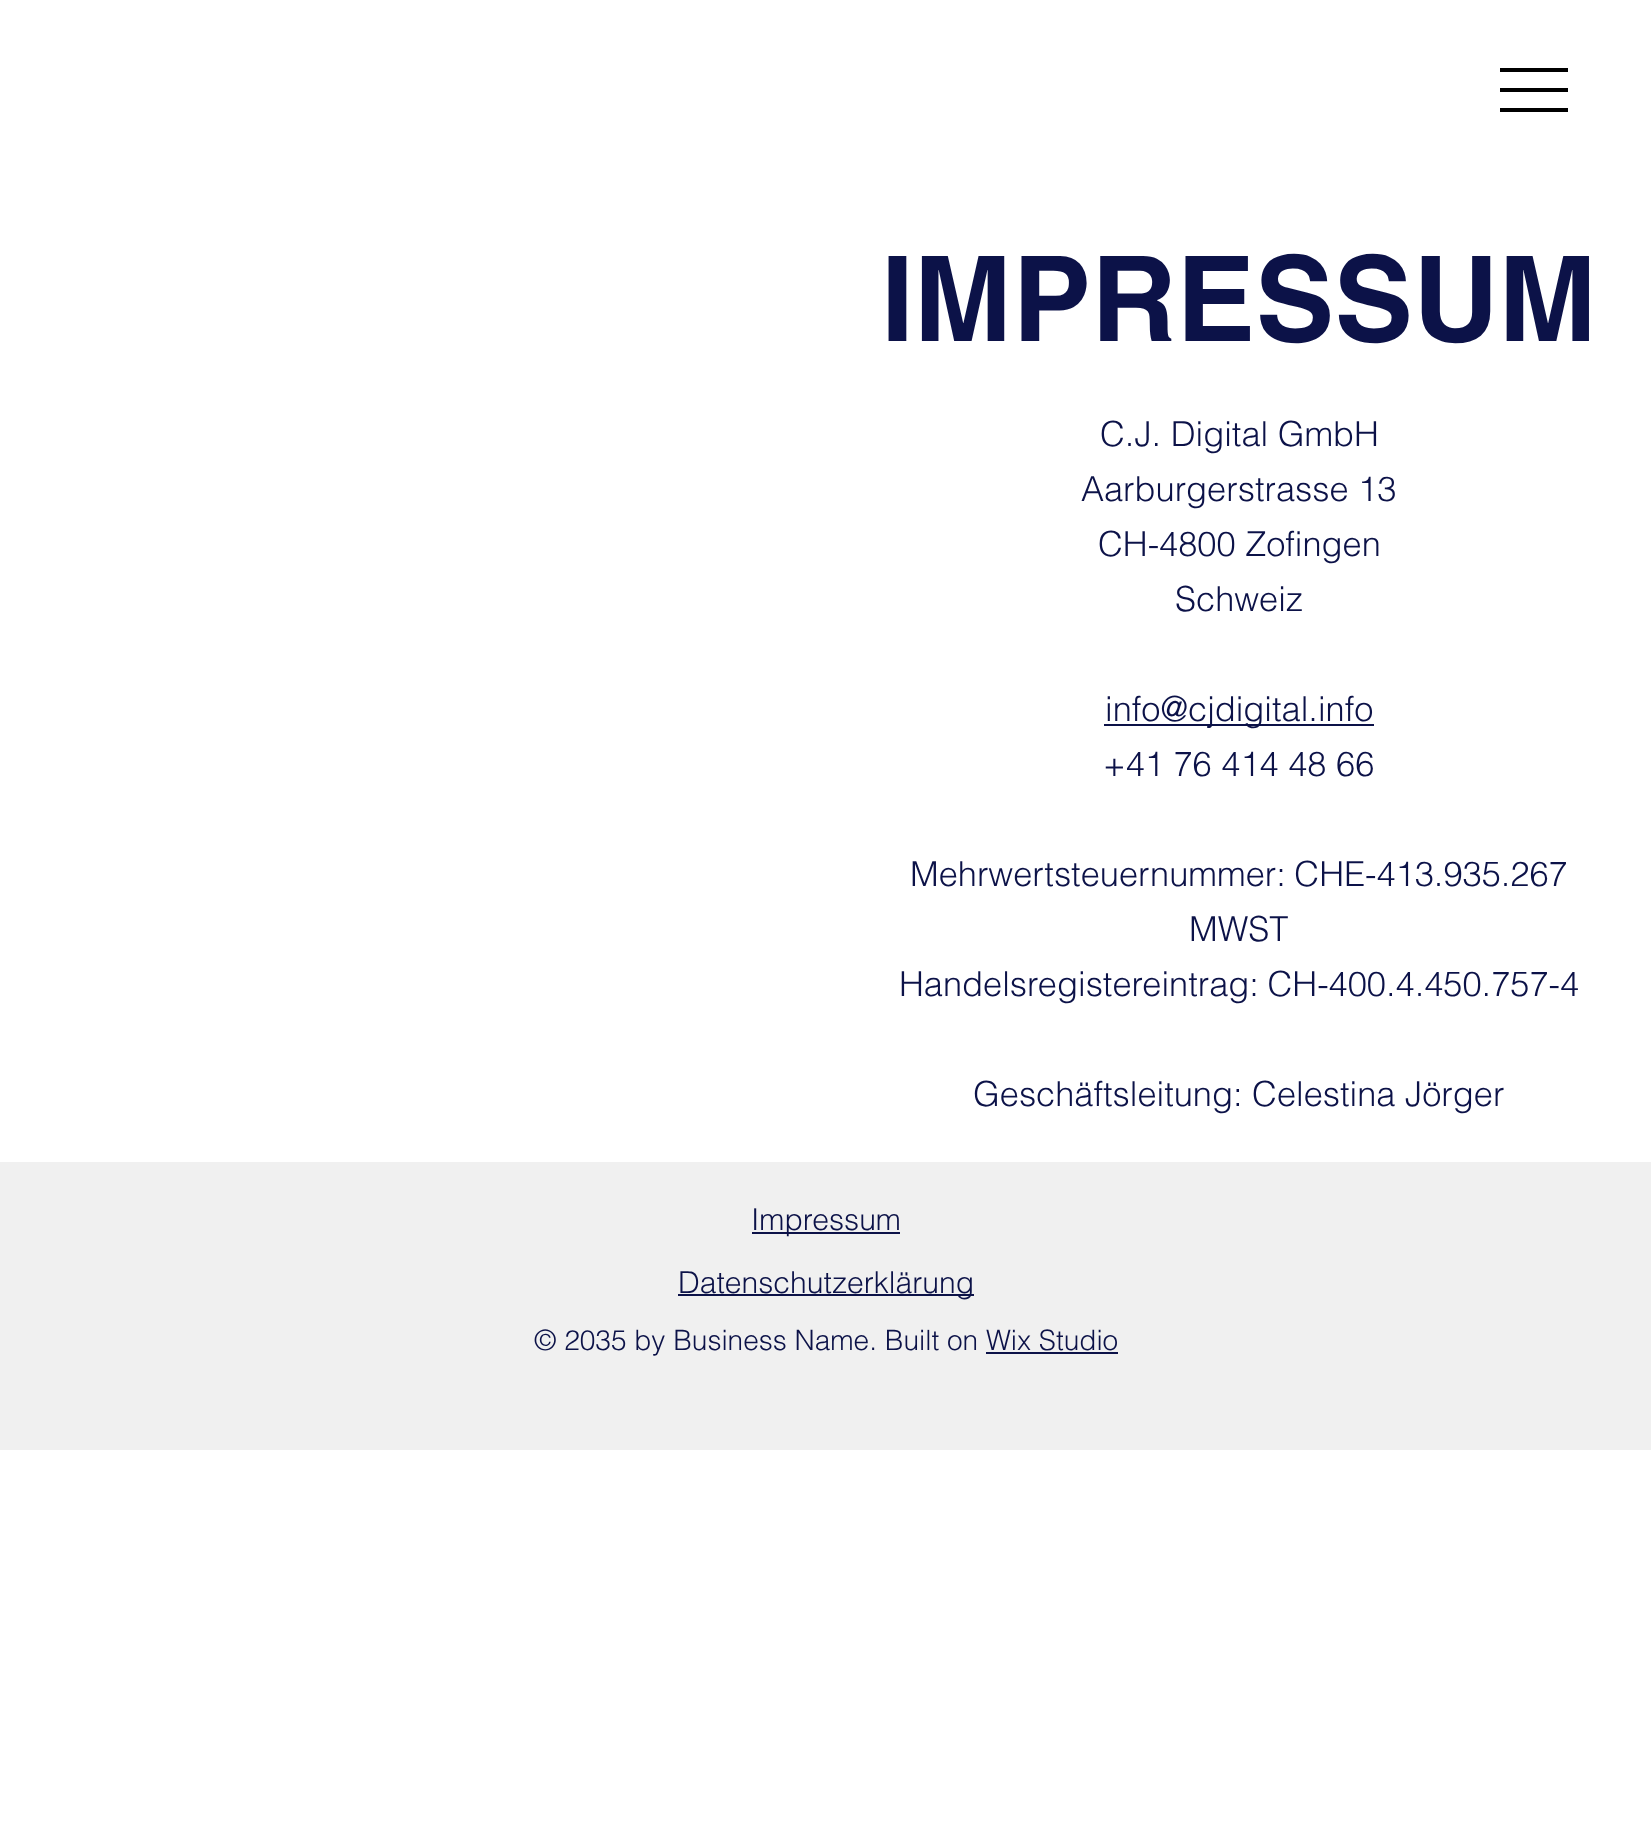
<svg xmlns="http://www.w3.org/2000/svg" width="1651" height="1837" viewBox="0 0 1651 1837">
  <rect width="100%" height="100%" fill="#ffffff"/>
  <rect x="1500" y="68" width="68" height="4" fill="#000000"/>
  <rect x="1500" y="88" width="68" height="4" fill="#000000"/>
  <rect x="1500" y="108" width="68" height="4" fill="#000000"/>
  <text x="881" y="341" font-family="helvetica" font-size="118.25" font-weight="bold" fill="#0c1248">IMPRESSUM</text>
  <text x="1100" y="446" font-family="helvetica" font-size="34.4" font-weight="300" fill="#0c1248">C.J. Digital GmbH</text>
  <text x="1081" y="501" font-family="helvetica" font-size="34.4" font-weight="300" fill="#0c1248">Aarburgerstrasse 13</text>
  <text x="1098" y="556" font-family="helvetica" font-size="34.4" font-weight="300" fill="#0c1248">CH-4800 Zofingen</text>
  <text x="1175" y="611" font-family="helvetica" font-size="34.4" font-weight="300" fill="#0c1248">Schweiz</text>
  <rect x="1104" y="724" width="270" height="2" fill="#0c1248"/>
  <text x="1105" y="721" font-family="helvetica" font-size="34.4" font-weight="300" fill="#0c1248">info@cjdigital.info</text>
  <text x="1103" y="776" font-family="helvetica" font-size="34.4" font-weight="300" fill="#0c1248">+41 76 414 48 66</text>
  <text x="910" y="886" word-spacing="-1" font-family="helvetica" font-size="34.4" font-weight="300" fill="#0c1248">Mehrwertsteuernummer: CHE-413.935.267</text>
  <text x="1189" y="941" font-family="helvetica" font-size="34.4" font-weight="300" fill="#0c1248">MWST</text>
  <text x="899" y="996" word-spacing="-1" font-family="helvetica" font-size="34.4" font-weight="300" fill="#0c1248">Handelsregistereintrag: CH-400.4.450.757-4</text>
  <text x="973" y="1106" font-family="helvetica" font-size="34.4" font-weight="300" fill="#0c1248">Geschäftsleitung: Celestina Jörger</text>
  <rect x="0" y="1162" width="1651" height="288" fill="#f0f0f0"/>
  <rect x="752" y="1232" width="148" height="2" fill="#0c1248"/>
  <text x="751" y="1230" font-family="helvetica" font-size="30.1" font-weight="300" fill="#0c1248">Impressum</text>
  <rect x="678" y="1294" width="296" height="2" fill="#0c1248"/>
  <text x="678" y="1293" font-family="helvetica" font-size="30.1" font-weight="300" fill="#0c1248">Datenschutzerklärung</text>
  <text x="534" y="1350" font-family="helvetica" font-size="28" font-weight="300" fill="#0c1248">© 2035 by Business Name. Built on Wix Studio</text>
  <rect x="986" y="1352" width="132" height="2" fill="#0c1248"/>
</svg>
